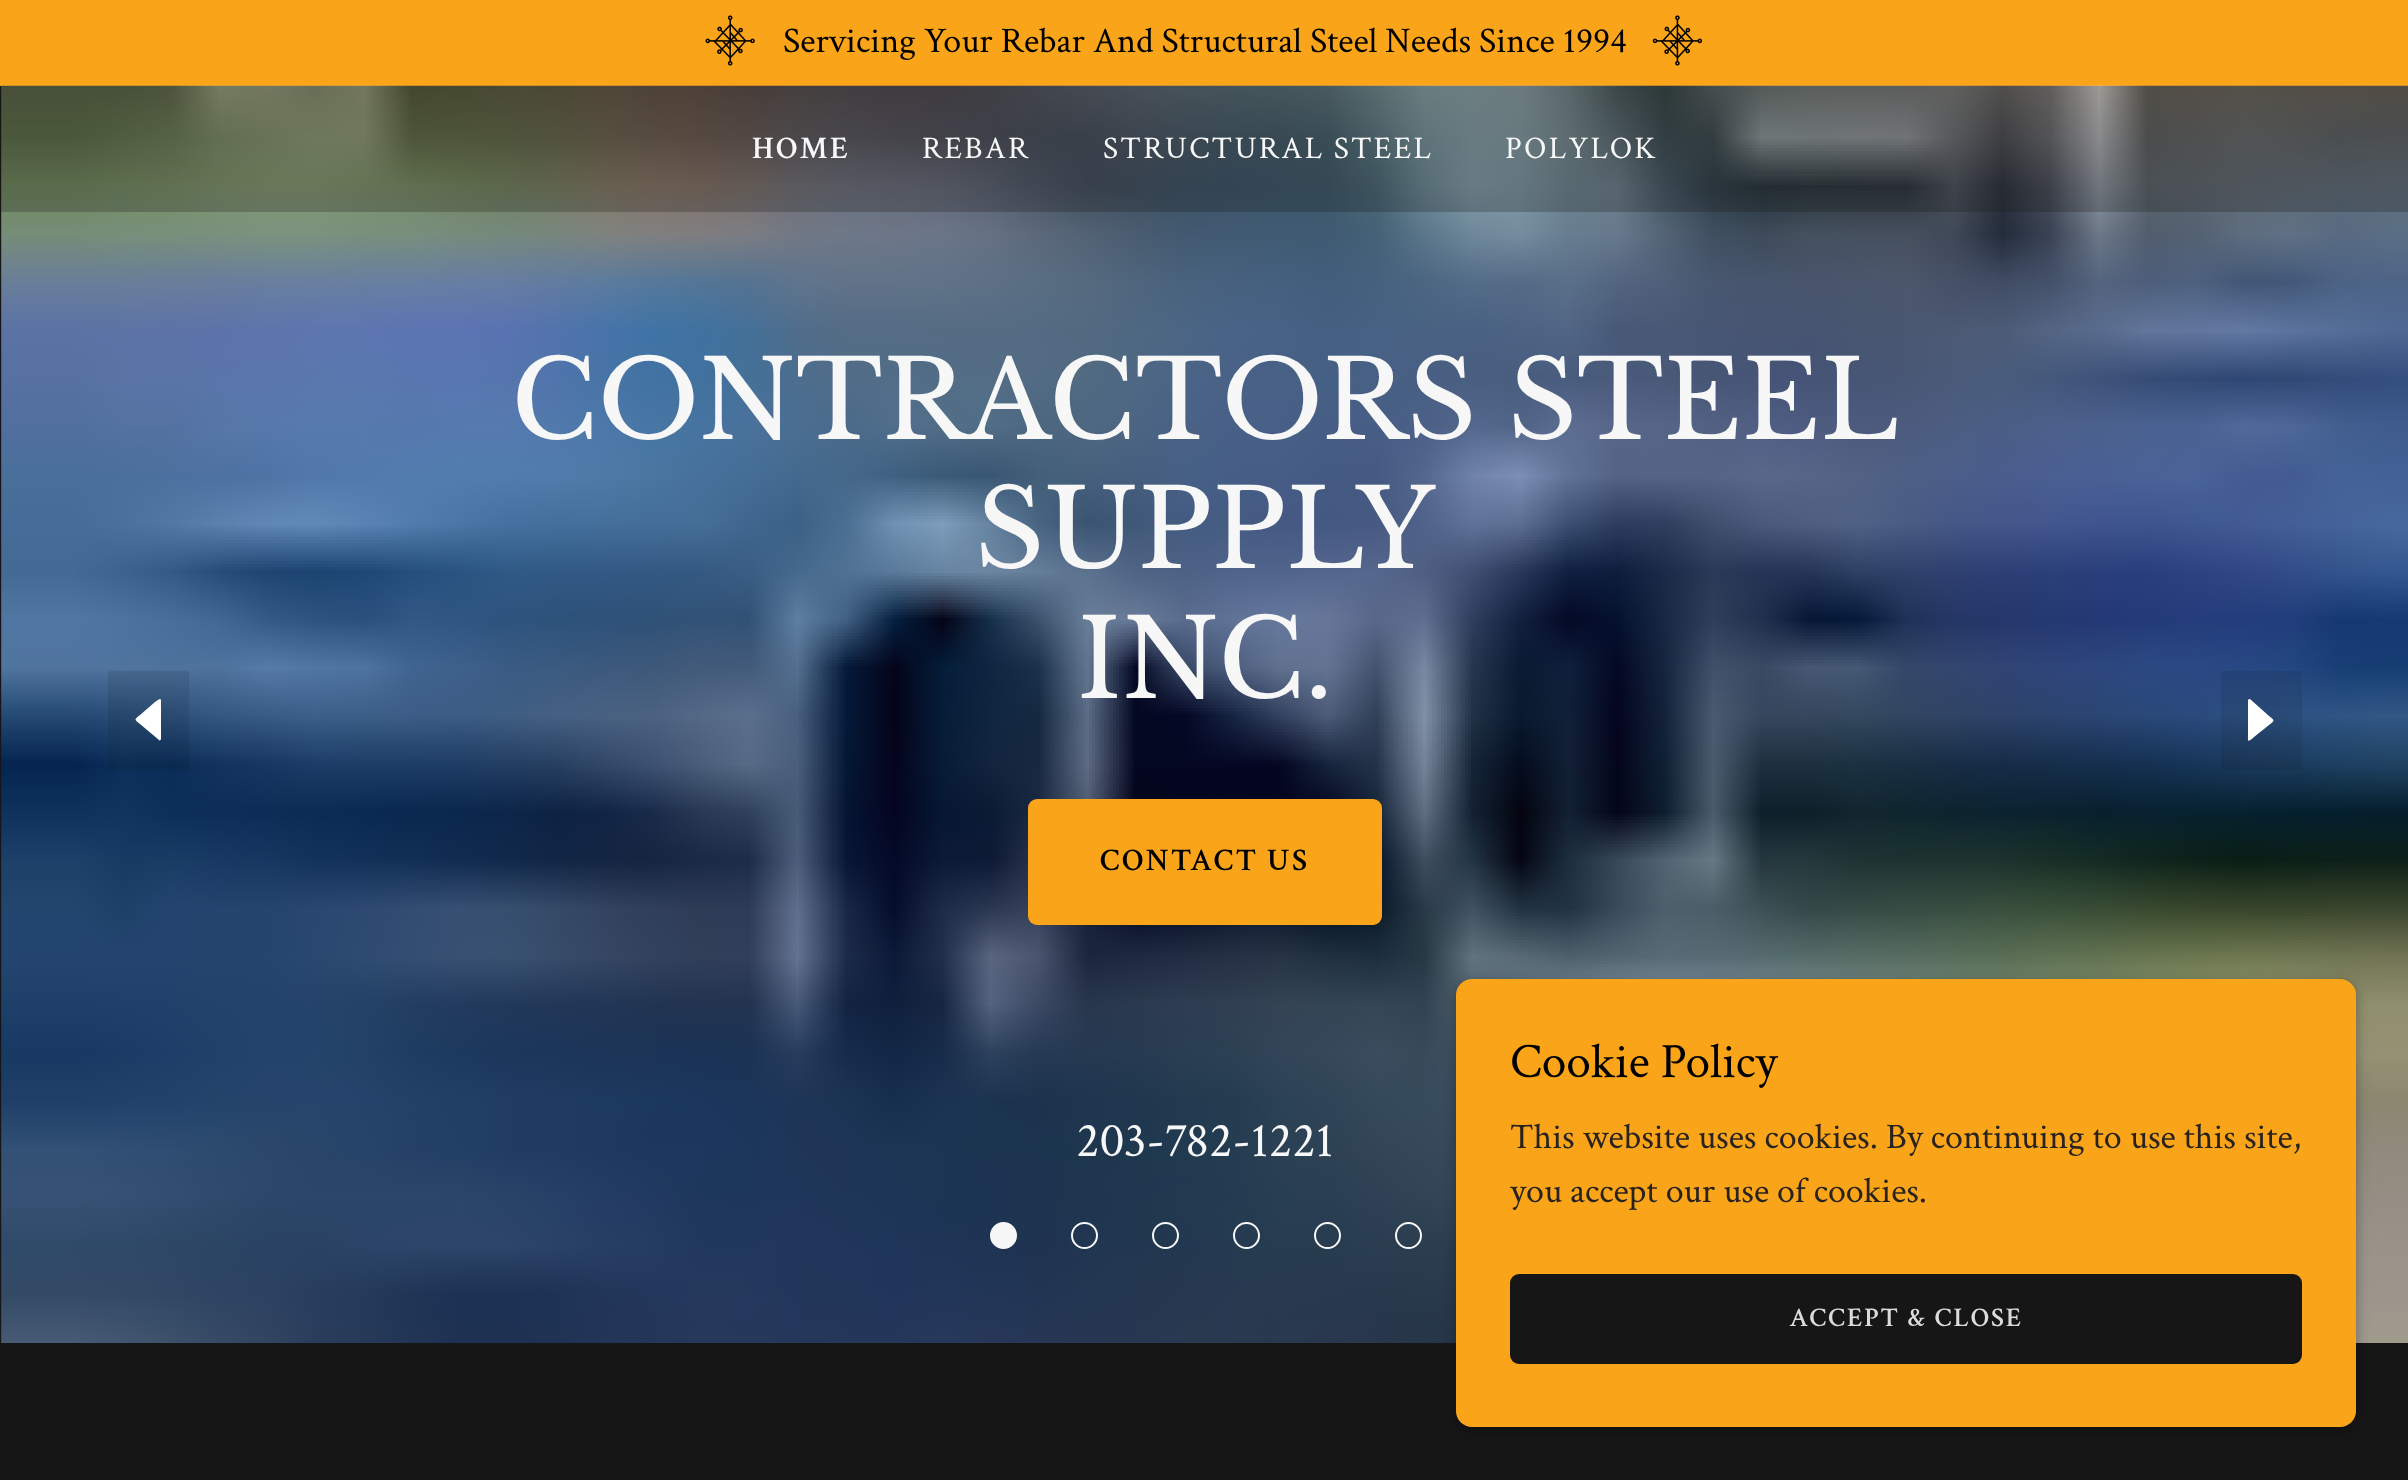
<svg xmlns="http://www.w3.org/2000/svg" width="2408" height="1480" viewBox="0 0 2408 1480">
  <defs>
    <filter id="blur1" x="-50%" y="-200%" width="200%" height="500%"><feGaussianBlur stdDeviation="7"/></filter>
  </defs>
  <rect width="100%" height="100%" fill="#161616"/>
  <rect x="0" y="0" width="2408" height="86" fill="#faa41a"/>
  <image x="705" y="15" width="50" height="51" href="img1.png"/>
  <text x="783" y="52" font-family="Crimson Text" font-size="36" fill="#000000">Servicing Your Rebar And Structural Steel Needs Since 1994</text>
  <image x="1652" y="15" width="50" height="51" href="img2.png"/>
  <image x="1" y="85" width="2407" height="1258" href="img3.png"/>
  <rect x="108" y="671" width="81" height="99" fill="#161616" fill-opacity="0.1"/>
  <path d="M159 740C159 741 161 740 161 739V707C161 698 162 697 155 702L140 715C134 720 134 719 140 724Z" fill="#ffffff" fill-rule="evenodd"/>
  <rect x="2221" y="671" width="81" height="99" fill="#161616" fill-opacity="0.1"/>
  <path d="M2250 699C2250 699 2248 699 2248 700V733C2248 742 2247 743 2254 737L2269 725C2275 720 2275 721 2269 716Z" fill="#ffffff" fill-rule="evenodd"/>
  <circle cx="1003.5" cy="1235.5" r="12.5" fill="#f7f7f7" stroke="#f7f7f7" stroke-width="2"/>
  <circle cx="1084.5" cy="1235.5" r="12.5" fill="none" stroke="#f7f7f7" stroke-width="2"/>
  <circle cx="1165.5" cy="1235.5" r="12.5" fill="none" stroke="#f7f7f7" stroke-width="2"/>
  <circle cx="1246.5" cy="1235.5" r="12.5" fill="none" stroke="#f7f7f7" stroke-width="2"/>
  <circle cx="1327.5" cy="1235.5" r="12.5" fill="none" stroke="#f7f7f7" stroke-width="2"/>
  <circle cx="1408.5" cy="1235.5" r="12.5" fill="none" stroke="#f7f7f7" stroke-width="2"/>
  <rect x="1" y="86" width="2407" height="126" fill="#161616" fill-opacity="0.25"/>
  <text x="752" y="158" font-family="Crimson Text" font-size="31.5" font-weight="600" letter-spacing="2.25" fill="#f7f7f7">HOME</text>
  <text x="922" y="158" font-family="Crimson Text" font-size="31.5" letter-spacing="2.25" fill="#f7f7f7">REBAR</text>
  <text x="1103" y="158" font-family="Crimson Text" font-size="31.5" letter-spacing="2.25" fill="#f7f7f7">STRUCTURAL STEEL</text>
  <text x="1505" y="158" font-family="Crimson Text" font-size="31.5" letter-spacing="2.25" fill="#f7f7f7">POLYLOK</text>
  <text x="511" y="439" font-family="Libre Baskerville" font-size="108" fill="#f7f7f7">CONTRACTORS STEEL</text>
  <text x="975" y="568" font-family="Libre Baskerville" font-size="108" fill="#f7f7f7">SUPPLY</text>
  <text x="1077" y="698" font-family="Libre Baskerville" font-size="108" fill="#f7f7f7">INC.</text>
  <rect x="1028" y="799" width="354" height="126" rx="9" fill="#faa41a"/>
  <text x="1100" y="870" font-family="Crimson Text" font-size="31.5" font-weight="600" letter-spacing="2.25" fill="#000000">CONTACT US</text>
  <text x="1076" y="1156" font-family="Crimson Text" font-size="49.5" fill="#f7f7f7">203-782-1221</text>
  <rect x="1456" y="983" width="900" height="448" rx="16" fill="#000000" fill-opacity="0.3" filter="url(#blur1)"/>
  <rect x="1456" y="979" width="900" height="448" rx="16" fill="#faa41a"/>
  <text x="1510" y="1077" font-family="Crimson Text" font-size="49.5" fill="#000000">Cookie Policy</text>
  <text x="1510" y="1148" font-family="Crimson Text" font-size="36" fill="#28231f">This website uses cookies. By continuing to use this site,</text>
  <text x="1510" y="1202" font-family="Crimson Text" font-size="36" fill="#28231f">you accept our use of cookies.</text>
  <rect x="1510" y="1274" width="792" height="90" rx="9" fill="#161616"/>
  <text x="1789" y="1326" font-family="Crimson Text" font-size="27" font-weight="600" letter-spacing="1.9" fill="#dbdbdb">ACCEPT &amp; CLOSE</text>
</svg>
